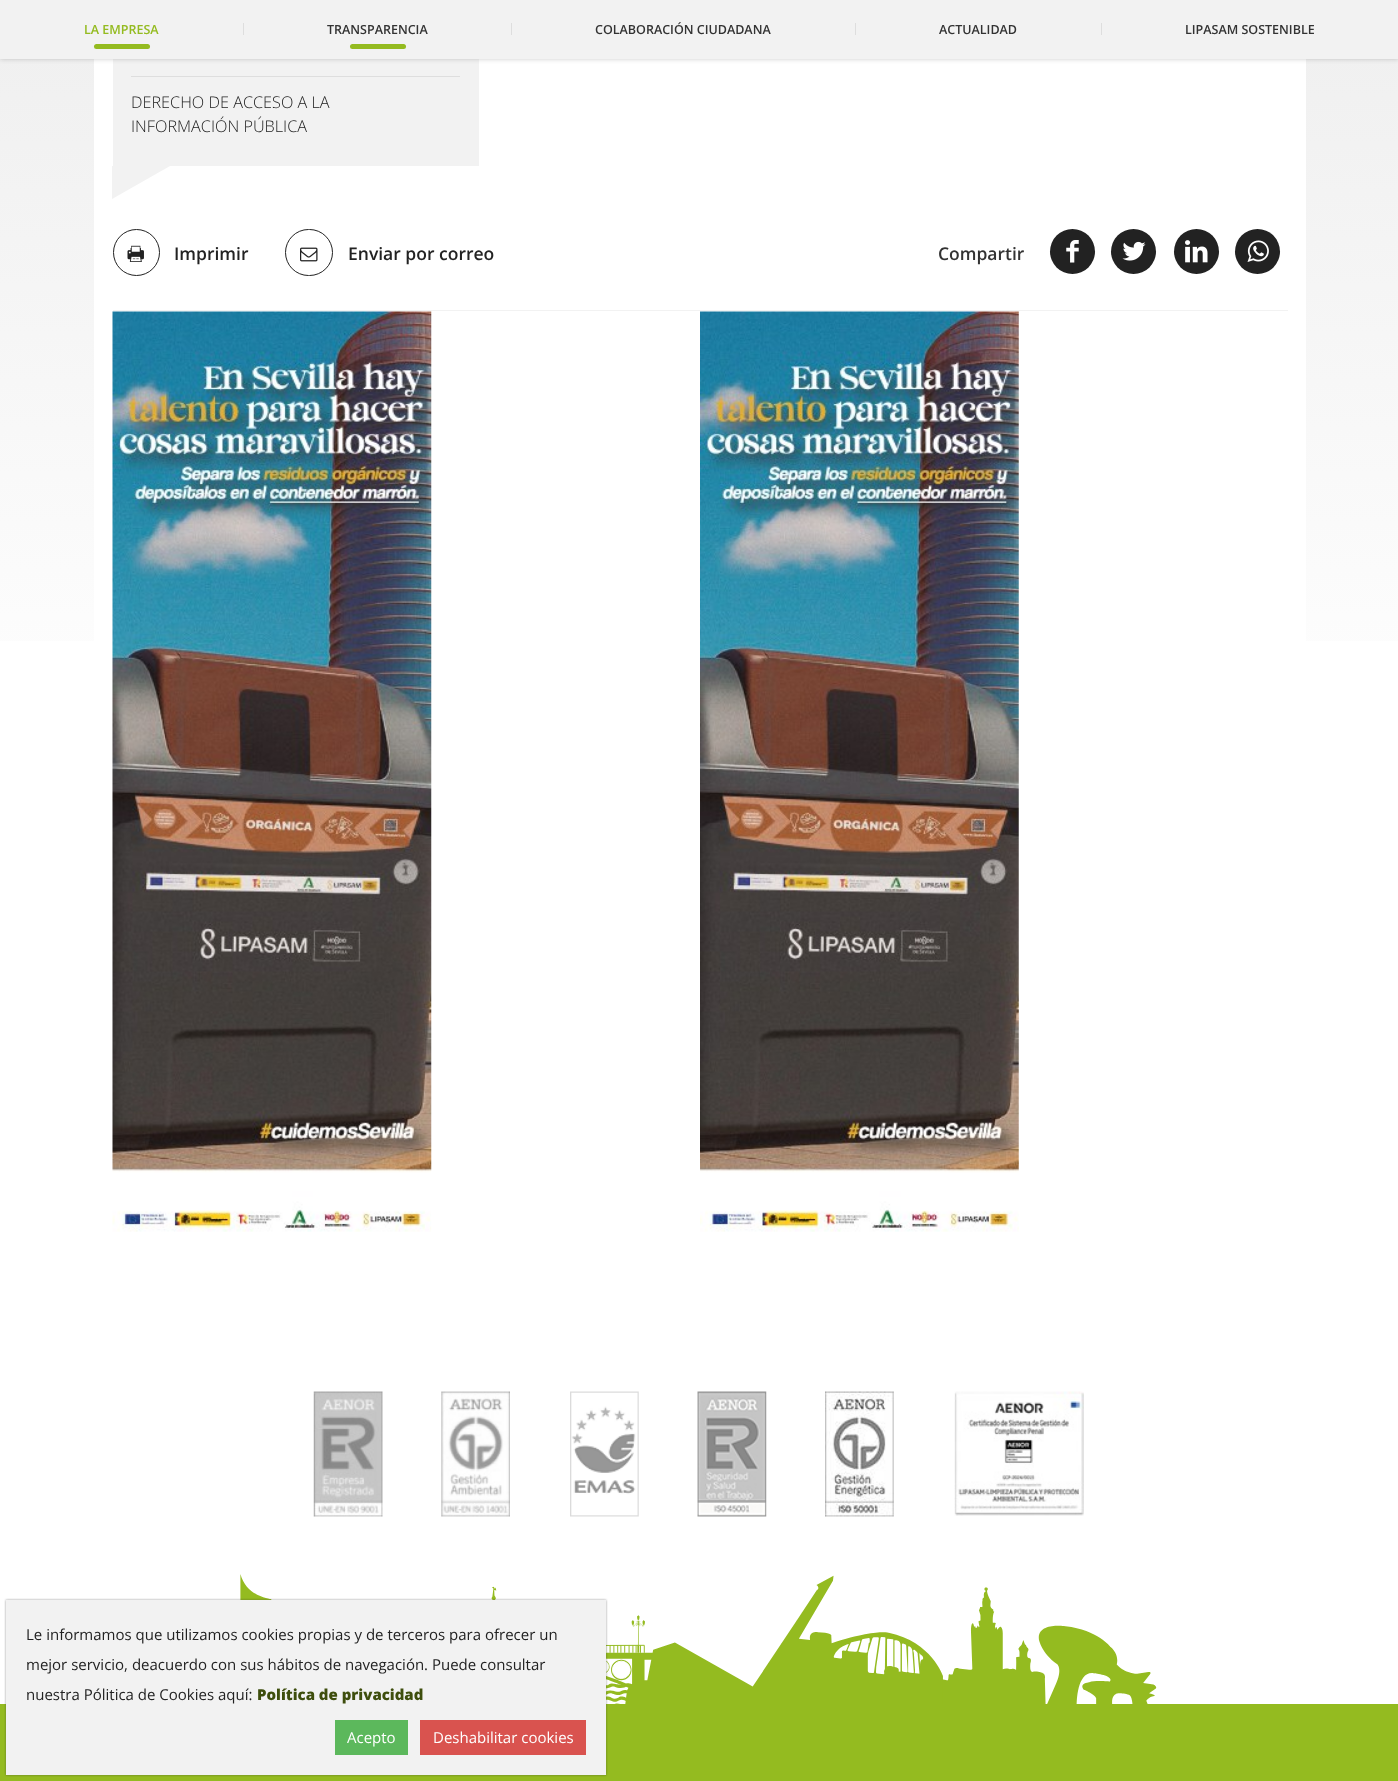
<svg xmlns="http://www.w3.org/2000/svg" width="1398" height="1781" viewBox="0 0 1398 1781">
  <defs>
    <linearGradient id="g1" gradientUnits="userSpaceOnUse" x1="699" y1="-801" x2="699" y2="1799"><stop offset="0" stop-color="#dedede"/><stop offset="0.6" stop-color="#ffffff"/></linearGradient>
    <filter id="blur1" x="-50%" y="-200%" width="200%" height="500%"><feGaussianBlur stdDeviation="2.5"/></filter>
    <filter id="blur2" x="-50%" y="-200%" width="200%" height="500%"><feGaussianBlur stdDeviation="1"/></filter>
  </defs>
  <rect width="100%" height="100%" fill="#ffffff"/>
  <rect x="0" y="59" width="1398" height="582" fill="url(#g1)"/>
  <rect x="94" y="59" width="1212" height="582" fill="#ffffff"/>
  <rect x="113" y="59" width="366" height="107" fill="#f2f2f2"/>
  <rect x="0" y="0" width="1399" height="59" fill="#000000" fill-opacity="0.2" filter="url(#blur1)"/>
  <rect x="0" y="0" width="1398" height="59" fill="#f2f2f2"/>
  <text x="84" y="34" font-family="Open Sans" font-size="12.5" font-weight="600" fill="#94bb20">LA EMPRESA</text>
  <rect x="94" y="44" width="56" height="5" rx="2.5" fill="#94bb20"/>
  <rect x="243" y="23" width="1" height="12" fill="#dedede"/>
  <text x="327" y="34" font-family="Open Sans" font-size="12.5" font-weight="600" fill="#333333">TRANSPARENCIA</text>
  <rect x="350" y="44" width="56" height="5" rx="2.5" fill="#94bb20"/>
  <rect x="511" y="23" width="1" height="12" fill="#dedede"/>
  <text x="595" y="34" font-family="Open Sans" font-size="12.5" font-weight="600" fill="#333333">COLABORACIÓN CIUDADANA</text>
  <rect x="855" y="23" width="1" height="12" fill="#dedede"/>
  <text x="939" y="34" font-family="Open Sans" font-size="12.5" font-weight="600" fill="#333333">ACTUALIDAD</text>
  <rect x="1101" y="23" width="1" height="12" fill="#dedede"/>
  <text x="1185" y="34" font-family="Open Sans" font-size="12.5" font-weight="600" fill="#333333">LIPASAM SOSTENIBLE</text>
  <rect x="131" y="76" width="329" height="1" fill="#dedede"/>
  <text x="131" y="108" font-family="Open Sans" font-size="16.25" font-weight="300" fill="#222222">DERECHO DE ACCESO A LA</text>
  <text x="131" y="132" font-family="Open Sans" font-size="16.25" font-weight="300" fill="#222222">INFORMACIÓN PÚBLICA</text>
  <path d="M112 166H170L112 199Z" fill="#f2f2f2"/>
  <rect x="113" y="310" width="1175" height="1" fill="#f2f2f2"/>
  <circle cx="136.5" cy="252.5" r="23" fill="none" stroke="#222222"/>
  <image x="127" y="245" width="17" height="17" href="img1.png"/>
  <text x="174" y="260" font-family="Open Sans" font-size="17.5" font-weight="600" fill="#222222">Imprimir</text>
  <rect x="285.5" y="229.5" width="47" height="46" rx="23" fill="none" stroke="#222222"/>
  <image x="300" y="247" width="18" height="15" href="img2.png"/>
  <text x="348" y="260" font-family="Open Sans" font-size="17.5" font-weight="600" fill="#222222">Enviar por correo</text>
  <text x="938" y="260" font-family="Open Sans" font-size="17.5" font-weight="600" fill="#333333">Compartir</text>
  <circle cx="1072.5" cy="251.5" r="22.5" fill="#222222"/>
  <image x="1066" y="240" width="13" height="23" href="img3.png"/>
  <circle cx="1133.5" cy="251.5" r="22.5" fill="#222222"/>
  <image x="1122" y="241" width="24" height="20" href="img4.png"/>
  <circle cx="1196.5" cy="251.5" r="22.5" fill="#222222"/>
  <image x="1185" y="240" width="23" height="23" href="img5.png"/>
  <circle cx="1257.5" cy="251.5" r="22.5" fill="#222222"/>
  <image x="1247" y="240" width="22" height="22" href="img6.png"/>
  <image x="112" y="311" width="320" height="921" href="img7.png"/>
  <image x="700" y="311" width="319" height="921" href="img8.png"/>
  <image x="313" y="1391" width="70" height="126" href="img9.png"/>
  <image x="441" y="1391" width="69" height="126" href="img10.png"/>
  <image x="570" y="1391" width="69" height="126" href="img11.png"/>
  <image x="697" y="1391" width="70" height="126" href="img12.png"/>
  <image x="825" y="1391" width="69" height="126" href="img13.png"/>
  <image x="954" y="1391" width="130" height="125" href="img14.png"/>
  <rect x="0" y="1704" width="1398" height="77" fill="#94bb20"/>
  <image x="240" y="1574" width="917" height="130" href="img15.png"/>
  <rect x="6" y="1600" width="600" height="175" fill="#222222" fill-opacity="0.5" filter="url(#blur2)"/>
  <rect x="6" y="1600" width="600" height="175" fill="#f2f2f2"/>
  <text x="26" y="1640" font-family="Open Sans" font-size="15" fill="#222222">Le informamos que utilizamos cookies propias y de terceros para ofrecer un</text>
  <text x="26" y="1670" font-family="Open Sans" font-size="15" fill="#222222">mejor servicio, deacuerdo con sus hábitos de navegación. Puede consultar</text>
  <text x="26" y="1700" font-family="Open Sans" font-size="15" fill="#222222">nuestra Pólitica de Cookies aquí:</text>
  <text x="257" y="1700" font-family="Open Sans" font-size="15" font-weight="800" fill="#3e4e0d">Política de privacidad</text>
  <rect x="335" y="1720" width="73" height="35" fill="#5cb85c"/>
  <text x="347" y="1743" font-family="Open Sans" font-size="15" fill="#ffffff">Acepto</text>
  <rect x="420" y="1720" width="166" height="35" fill="#d9534f"/>
  <text x="433" y="1743" font-family="Open Sans" font-size="15" fill="#ffffff">Deshabilitar cookies</text>
</svg>
